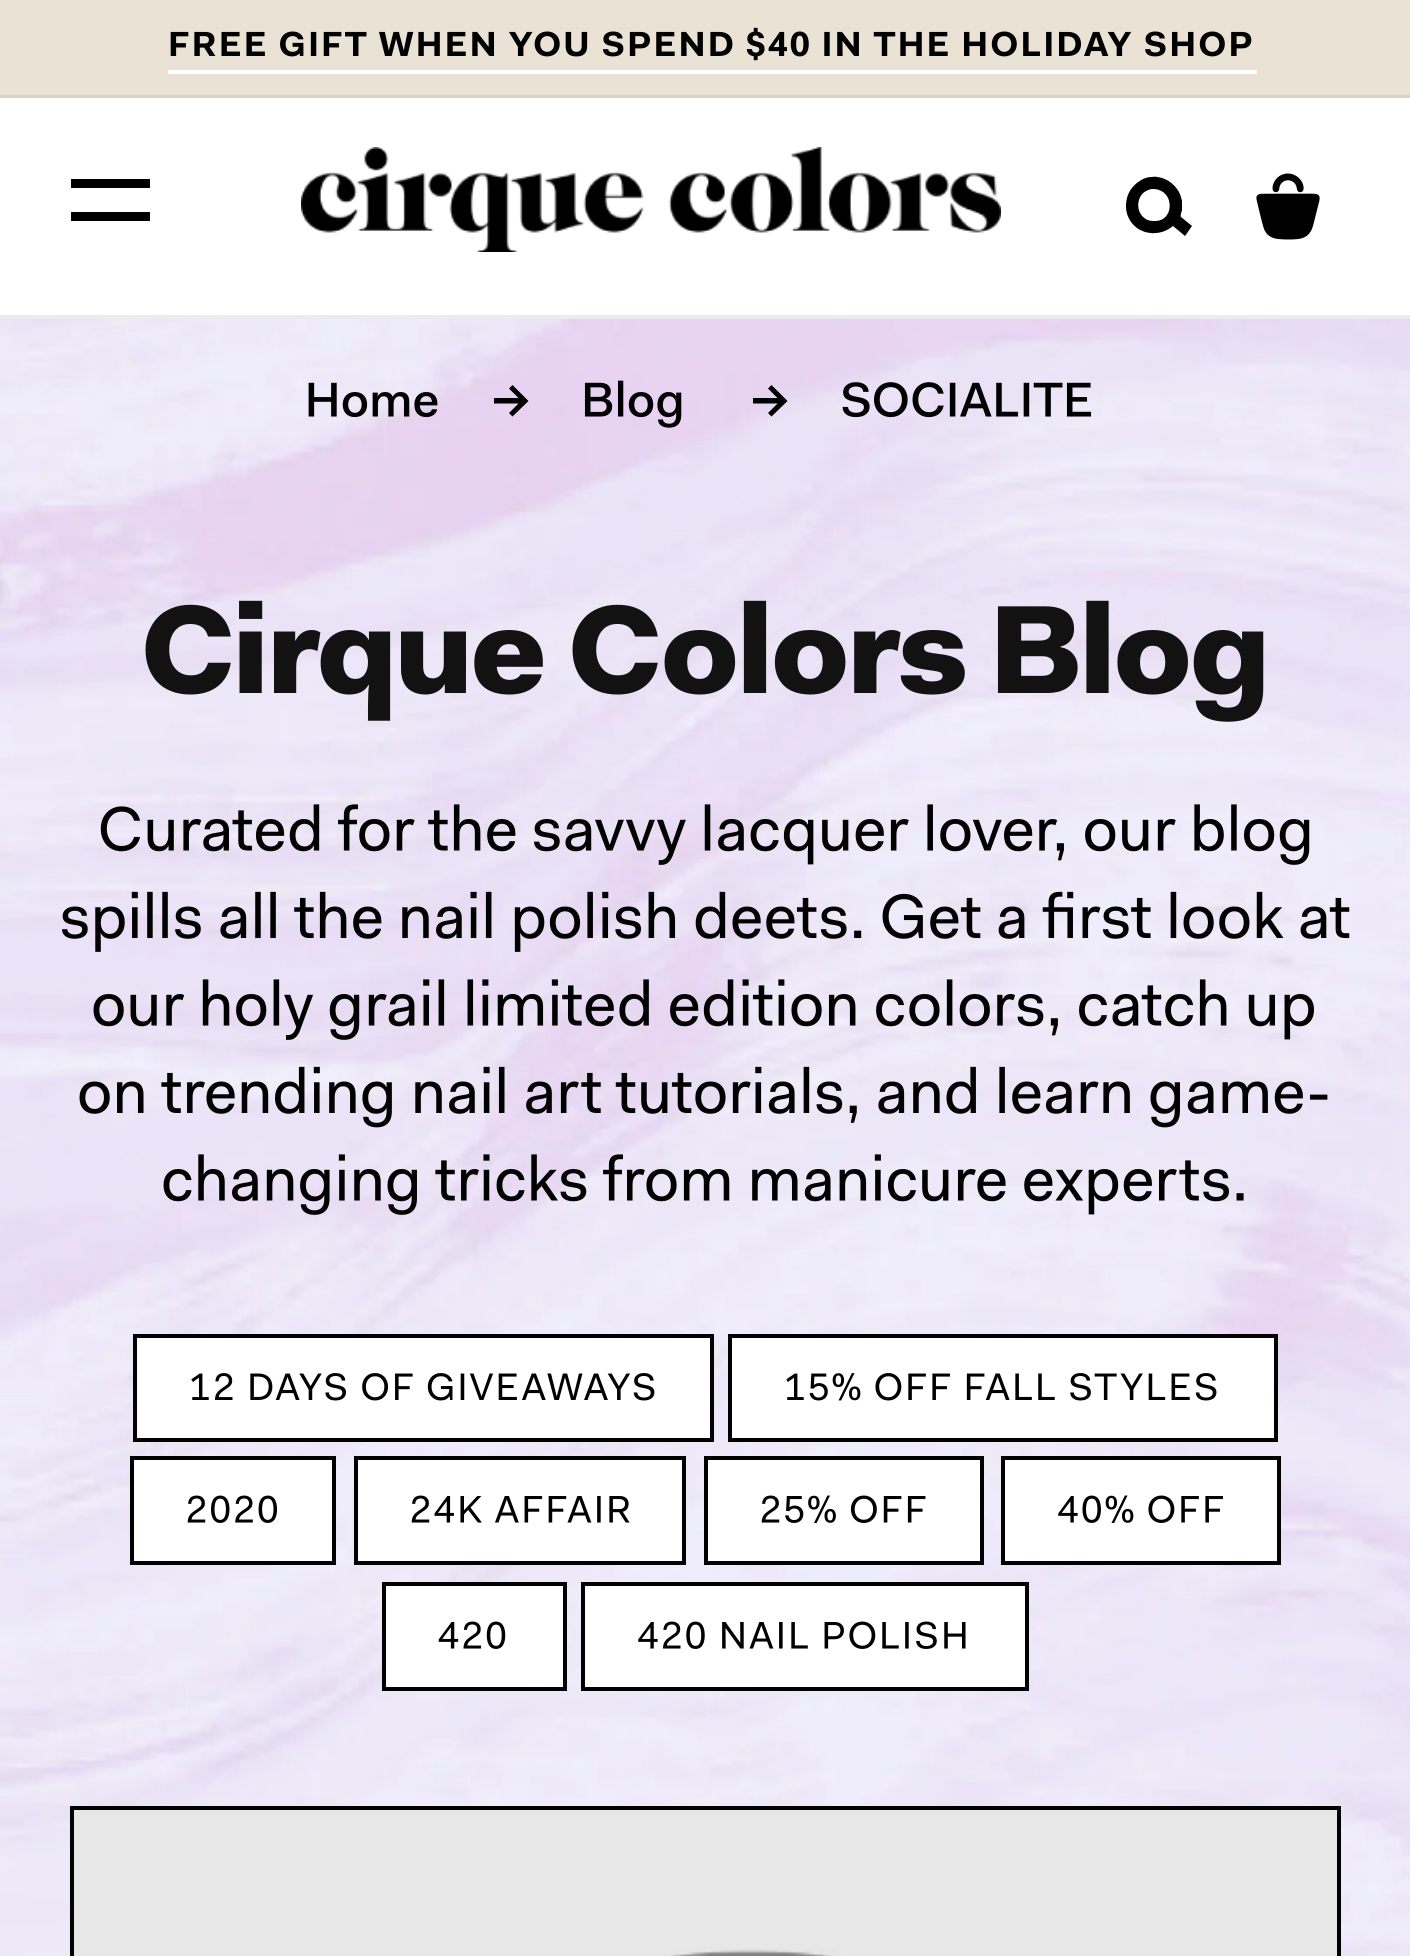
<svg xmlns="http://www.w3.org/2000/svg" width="1410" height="1956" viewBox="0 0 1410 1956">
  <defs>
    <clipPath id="clip1"><rect x="494" y="382" width="35" height="35"/></clipPath>
    <clipPath id="clip2"><rect x="753" y="382" width="35" height="35"/></clipPath>
  </defs>
  <rect width="100%" height="100%" fill="#ffffff"/>
  <rect x="0" y="0" width="1410" height="95" fill="#ebe2d6"/>
  <rect x="0" y="95" width="1410" height="3" fill="#dad1c6"/>
  <rect x="168" y="70" width="1089" height="4" fill="#ffffff"/>
  <image x="170" y="27" width="1082" height="34" href="img1.png"/>
  <rect x="0" y="315" width="1410" height="4" fill="#ececec"/>
  <rect x="71" y="179" width="79" height="9" fill="#000000"/>
  <rect x="71" y="212" width="79" height="9" fill="#000000"/>
  <image x="301" y="147" width="700" height="105" href="img2.png"/>
  <path d="M1173 226C1151 244 1120 226 1127 198C1129 190 1135 183 1143 179C1160 172 1179 183 1182 201V210C1182 211 1180 215 1181 217L1192 226L1185 236ZM1154 221C1175 222 1175 190 1154 189C1133 189 1133 221 1154 221Z" fill="#000000"/>
  <image x="1256" y="173" width="64" height="67" href="img3.png"/>
  <image x="0" y="319" width="1410" height="1637" href="img4.png"/>
  <image x="308" y="382" width="130" height="36" href="img5.png"/>
  <g clip-path="url(#clip1)">
    <path d="M493.5 398H518.5L509 388.5L512.5 385L528.5 401L512.5 416.5L509 413L518.5 403.5H493.5Z" fill="#000000" fill-rule="evenodd"/>
  </g>
  <image x="584" y="380" width="98" height="48" href="img6.png"/>
  <g clip-path="url(#clip2)">
    <path d="M752.5 398H777.5L768 388.5L771.5 385L787.5 401L771.5 416.5L768 413L777.5 403.5H752.5Z" fill="#000000" fill-rule="evenodd"/>
  </g>
  <image x="842" y="382" width="250" height="36" href="img7.png"/>
  <image x="145" y="600" width="398" height="121" href="img8.png"/>
  <image x="572" y="600" width="692" height="122" href="img9.png"/>
  <image x="100" y="804" width="1210" height="61" href="img10.png"/>
  <image x="62" y="891" width="1288" height="61" href="img11.png"/>
  <image x="93" y="979" width="1221" height="61" href="img12.png"/>
  <image x="79" y="1066" width="1249" height="62" href="img13.png"/>
  <image x="163" y="1154" width="1081" height="61" href="img14.png"/>
  <rect x="135" y="1336" width="577" height="104" fill="#ffffff" stroke="#000000" stroke-width="4"/>
  <image x="191" y="1373" width="464" height="28" href="img15.png"/>
  <rect x="730" y="1336" width="546" height="104" fill="#ffffff" stroke="#000000" stroke-width="4"/>
  <image x="786" y="1373" width="431" height="28" href="img16.png"/>
  <rect x="132" y="1458" width="202" height="105" fill="#ffffff" stroke="#000000" stroke-width="4"/>
  <image x="187" y="1495" width="91" height="28" href="img17.png"/>
  <rect x="356" y="1458" width="328" height="105" fill="#ffffff" stroke="#000000" stroke-width="4"/>
  <image x="411" y="1495" width="219" height="28" href="img18.png"/>
  <rect x="706" y="1458" width="276" height="105" fill="#ffffff" stroke="#000000" stroke-width="4"/>
  <image x="761" y="1495" width="165" height="28" href="img19.png"/>
  <rect x="1003" y="1458" width="276" height="105" fill="#ffffff" stroke="#000000" stroke-width="4"/>
  <image x="1058" y="1495" width="165" height="28" href="img20.png"/>
  <rect x="384" y="1584" width="181" height="105" fill="#ffffff" stroke="#000000" stroke-width="4"/>
  <image x="438" y="1621" width="68" height="28" href="img21.png"/>
  <rect x="583" y="1584" width="444" height="105" fill="#ffffff" stroke="#000000" stroke-width="4"/>
  <image x="638" y="1621" width="328" height="28" href="img22.png"/>
  <rect x="72" y="1808" width="1267" height="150" fill="none" stroke="#000000" stroke-width="4"/>
  <image x="74" y="1810" width="1263" height="146" href="img23.png"/>
</svg>
